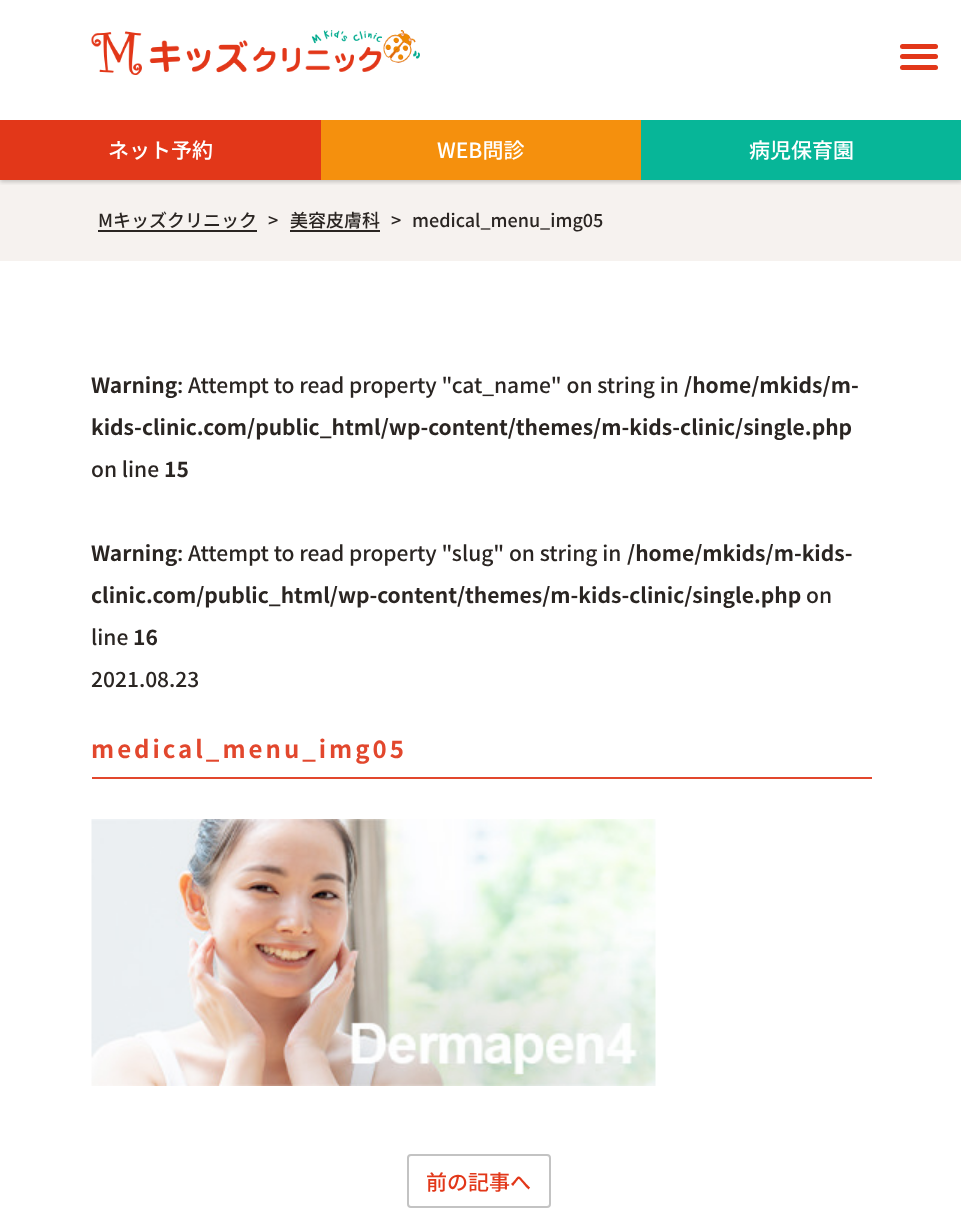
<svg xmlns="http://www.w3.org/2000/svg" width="961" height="1212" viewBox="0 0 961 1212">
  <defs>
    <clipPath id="clip1"><rect x="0" y="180" width="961" height="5"/></clipPath>
    <filter id="blur1" x="-50%" y="-200%" width="200%" height="500%"><feGaussianBlur stdDeviation="2"/></filter>
  </defs>
  <rect width="100%" height="100%" fill="#ffffff"/>
  <rect x="0" y="180" width="961" height="81" fill="#f6f2ef"/>
  <g clip-path="url(#clip1)">
    <rect x="0" y="2" width="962" height="180" fill="#000000" fill-opacity="0.2" filter="url(#blur1)"/>
  </g>
  <image x="91" y="30" width="329" height="45" href="img1.png"/>
  <rect x="900" y="44" width="38" height="5" rx="2.5" fill="#e23719"/>
  <rect x="900" y="54" width="38" height="5" rx="2.5" fill="#e23719"/>
  <rect x="900" y="65" width="38" height="5" rx="2.5" fill="#e23719"/>
  <rect x="0" y="120" width="321" height="60" fill="#e23719"/>
  <text x="108" y="158" font-family="Noto Sans JP" font-size="21" font-weight="500" fill="#ffffff">ネット予約</text>
  <rect x="321" y="120" width="320" height="60" fill="#f5900d"/>
  <text x="437" y="158" font-family="Noto Sans JP" font-size="21" font-weight="500" fill="#ffffff">WEB問診</text>
  <rect x="641" y="120" width="320" height="60" fill="#07b698"/>
  <text x="749" y="158" font-family="Noto Sans JP" font-size="21" font-weight="500" fill="#ffffff">病児保育園</text>
  <text x="98" y="227" font-family="Noto Sans JP" font-size="18" font-weight="500" fill="#2a2522">Mキッズクリニック</text>
  <rect x="98" y="230" width="159" height="2" fill="#2a2522"/>
  <text x="268" y="227" font-family="Noto Sans JP" font-size="18" font-weight="500" fill="#2a2522">&gt;</text>
  <text x="290" y="227" font-family="Noto Sans JP" font-size="18" font-weight="500" fill="#2a2522">美容皮膚科</text>
  <rect x="290" y="230" width="90" height="2" fill="#2a2522"/>
  <text x="391" y="227" font-family="Noto Sans JP" font-size="18" font-weight="500" fill="#2a2522">&gt;</text>
  <text x="412" y="227" font-family="Noto Sans JP" font-size="18" font-weight="500" fill="#2a2522">medical_menu_img05</text>
  <text x="91" y="393" font-family="Noto Sans JP" font-size="21" font-weight="bold" fill="#2a2522">Warning</text>
  <text x="177" y="393" font-family="Noto Sans JP" font-size="21" font-weight="500" fill="#2a2522">: Attempt to read property "cat_name" on string in</text>
  <text x="684" y="393" font-family="Noto Sans JP" font-size="21" font-weight="bold" fill="#2a2522">/home/mkids/m-</text>
  <text x="91" y="435" font-family="Noto Sans JP" font-size="21" font-weight="bold" fill="#2a2522">kids-clinic.com/public_html/wp-content/themes/m-kids-clinic/single.php</text>
  <text x="91" y="477" font-family="Noto Sans JP" font-size="21" font-weight="500" fill="#2a2522">on line</text>
  <text x="164" y="477" font-family="Noto Sans JP" font-size="21" font-weight="bold" fill="#2a2522">15</text>
  <text x="91" y="561" font-family="Noto Sans JP" font-size="21" font-weight="bold" fill="#2a2522">Warning</text>
  <text x="177" y="561" font-family="Noto Sans JP" font-size="21" font-weight="500" fill="#2a2522">: Attempt to read property "slug" on string in</text>
  <text x="627" y="561" font-family="Noto Sans JP" font-size="21" font-weight="bold" fill="#2a2522">/home/mkids/m-kids-</text>
  <text x="91" y="603" font-family="Noto Sans JP" font-size="21" font-weight="bold" fill="#2a2522">clinic.com/public_html/wp-content/themes/m-kids-clinic/single.php</text>
  <text x="806" y="603" font-family="Noto Sans JP" font-size="21" font-weight="500" fill="#2a2522">on</text>
  <text x="91" y="645" font-family="Noto Sans JP" font-size="21" font-weight="500" fill="#2a2522">line</text>
  <text x="133" y="645" font-family="Noto Sans JP" font-size="21" font-weight="bold" fill="#2a2522">16</text>
  <text x="91" y="687" font-family="Noto Sans JP" font-size="21" font-weight="500" fill="#2a2522">2021.08.23</text>
  <rect x="92" y="777" width="780" height="2" fill="#e2472d"/>
  <text x="91" y="758" font-family="Noto Sans JP" font-size="24" font-weight="bold" letter-spacing="3" fill="#e2472d">medical_menu_img05</text>
  <image x="91" y="819" width="565" height="267" href="img2.png"/>
  <rect x="408" y="1155" width="142" height="52" rx="3" fill="none" stroke="#c3c3c3" stroke-width="2"/>
  <text x="426" y="1190" font-family="Noto Sans JP" font-size="21" font-weight="500" fill="#e23719">前の記事へ</text>
</svg>
